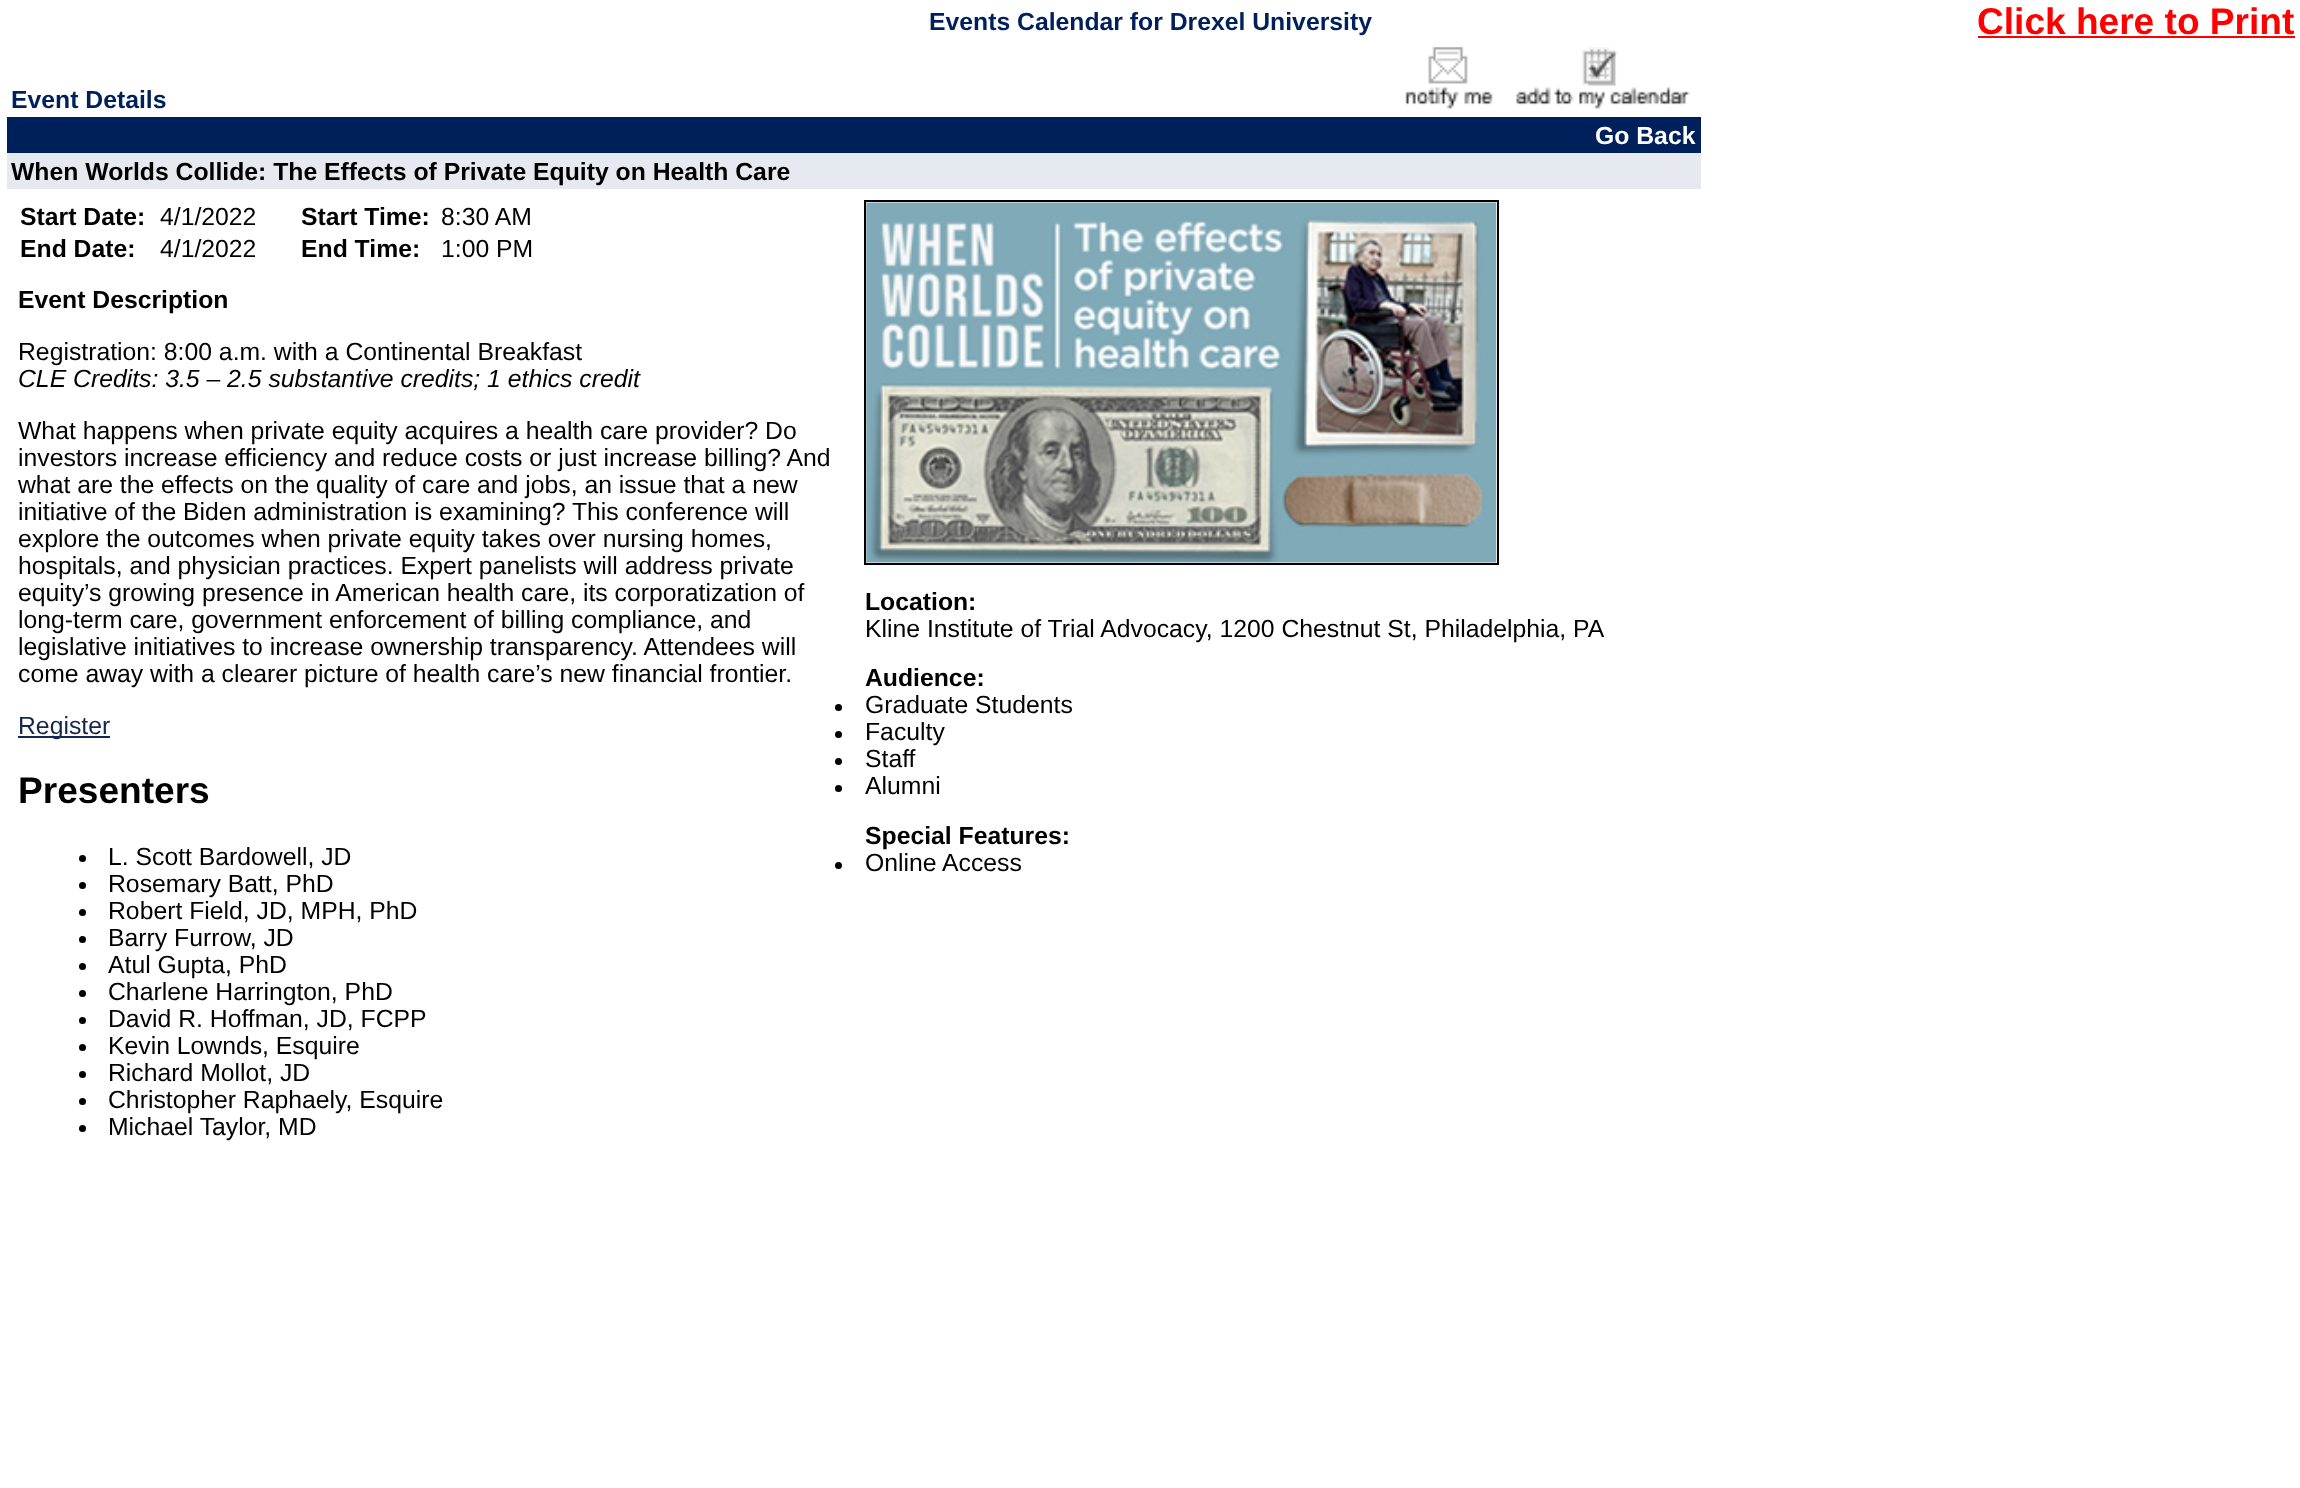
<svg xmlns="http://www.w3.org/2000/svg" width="2300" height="1488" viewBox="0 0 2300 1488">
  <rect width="100%" height="100%" fill="#ffffff"/>
  <text x="929" y="30" font-family="Liberation Sans" font-size="24.75" font-weight="bold" fill="#00205b">Events Calendar for Drexel University</text>
  <text x="1977" y="34" font-family="Liberation Sans" font-size="37.1" font-weight="bold" fill="#ff0000">Click here to Print</text>
  <rect x="1978" y="36" width="317" height="2" fill="#ff0000"/>
  <text x="11" y="108" font-family="Liberation Sans" font-size="24.75" font-weight="bold" fill="#00205b">Event Details</text>
  <image x="1405" y="47" width="88" height="62" href="img1.png"/>
  <image x="1516" y="47" width="175" height="62" href="img2.png"/>
  <rect x="7" y="117" width="1694" height="36" fill="#00205b"/>
  <text x="1595" y="144" font-family="Liberation Sans" font-size="24.75" font-weight="bold" fill="#ffffff">Go Back</text>
  <rect x="7" y="153" width="1694" height="36" fill="#e6e9ef"/>
  <text x="11" y="180" font-family="Liberation Sans" font-size="24.75" font-weight="bold" fill="#000000">When Worlds Collide: The Effects of Private Equity on Health Care</text>
  <text x="20" y="225" font-family="Liberation Sans" font-size="24.75" font-weight="bold" fill="#000000">Start Date:</text>
  <text x="160" y="225" font-family="Liberation Sans" font-size="24.75" fill="#000000">4/1/2022</text>
  <text x="301" y="225" font-family="Liberation Sans" font-size="24.75" font-weight="bold" fill="#000000">Start Time:</text>
  <text x="441" y="225" font-family="Liberation Sans" font-size="24.75" fill="#000000">8:30 AM</text>
  <text x="20" y="257" font-family="Liberation Sans" font-size="24.75" font-weight="bold" fill="#000000">End Date:</text>
  <text x="160" y="257" font-family="Liberation Sans" font-size="24.75" fill="#000000">4/1/2022</text>
  <text x="301" y="257" font-family="Liberation Sans" font-size="24.75" font-weight="bold" fill="#000000">End Time:</text>
  <text x="441" y="257" font-family="Liberation Sans" font-size="24.75" fill="#000000">1:00 PM</text>
  <text x="18" y="308" font-family="Liberation Sans" font-size="24.75" font-weight="bold" fill="#000000">Event Description</text>
  <text x="18" y="360" font-family="Liberation Sans" font-size="24.75" fill="#000000">Registration: 8:00 a.m. with a Continental Breakfast</text>
  <text x="18" y="387" font-family="Liberation Sans" font-size="24.75" font-style="italic" fill="#000000">CLE Credits: 3.5 – 2.5 substantive credits; 1 ethics credit</text>
  <text x="18" y="439" font-family="Liberation Sans" font-size="24.75" fill="#000000">What happens when private equity acquires a health care provider? Do</text>
  <text x="18" y="466" font-family="Liberation Sans" font-size="24.75" fill="#000000">investors increase efficiency and reduce costs or just increase billing? And</text>
  <text x="18" y="493" font-family="Liberation Sans" font-size="24.75" fill="#000000">what are the effects on the quality of care and jobs, an issue that a new</text>
  <text x="18" y="520" font-family="Liberation Sans" font-size="24.75" fill="#000000">initiative of the Biden administration is examining? This conference will</text>
  <text x="18" y="547" font-family="Liberation Sans" font-size="24.75" fill="#000000">explore the outcomes when private equity takes over nursing homes,</text>
  <text x="18" y="574" font-family="Liberation Sans" font-size="24.75" fill="#000000">hospitals, and physician practices. Expert panelists will address private</text>
  <text x="18" y="601" font-family="Liberation Sans" font-size="24.75" fill="#000000">equity’s growing presence in American health care, its corporatization of</text>
  <text x="18" y="628" font-family="Liberation Sans" font-size="24.75" fill="#000000">long-term care, government enforcement of billing compliance, and</text>
  <text x="18" y="655" font-family="Liberation Sans" font-size="24.75" fill="#000000">legislative initiatives to increase ownership transparency. Attendees will</text>
  <text x="18" y="682" font-family="Liberation Sans" font-size="24.75" fill="#000000">come away with a clearer picture of health care’s new financial frontier.</text>
  <rect x="18" y="736" width="92" height="2" fill="#15274d"/>
  <text x="18" y="734" font-family="Liberation Sans" font-size="24.75" fill="#15274d">Register</text>
  <text x="18" y="803" font-family="Liberation Sans" font-size="37.1" font-weight="bold" fill="#000000">Presenters</text>
  <circle cx="82.5" cy="858.5" r="3.5" fill="#000000"/>
  <text x="108" y="865" font-family="Liberation Sans" font-size="24.75" fill="#000000">L. Scott Bardowell, JD</text>
  <circle cx="82.5" cy="885.5" r="3.5" fill="#000000"/>
  <text x="108" y="892" font-family="Liberation Sans" font-size="24.75" fill="#000000">Rosemary Batt, PhD</text>
  <circle cx="82.5" cy="912.5" r="3.5" fill="#000000"/>
  <text x="108" y="919" font-family="Liberation Sans" font-size="24.75" fill="#000000">Robert Field, JD, MPH, PhD</text>
  <circle cx="82.5" cy="939.5" r="3.5" fill="#000000"/>
  <text x="108" y="946" font-family="Liberation Sans" font-size="24.75" fill="#000000">Barry Furrow, JD</text>
  <circle cx="82.5" cy="966.5" r="3.5" fill="#000000"/>
  <text x="108" y="973" font-family="Liberation Sans" font-size="24.75" fill="#000000">Atul Gupta, PhD</text>
  <circle cx="82.5" cy="993.5" r="3.5" fill="#000000"/>
  <text x="108" y="1000" font-family="Liberation Sans" font-size="24.75" fill="#000000">Charlene Harrington, PhD</text>
  <circle cx="82.5" cy="1020.5" r="3.5" fill="#000000"/>
  <text x="108" y="1027" font-family="Liberation Sans" font-size="24.75" fill="#000000">David R. Hoffman, JD, FCPP</text>
  <circle cx="82.5" cy="1047.5" r="3.5" fill="#000000"/>
  <text x="108" y="1054" font-family="Liberation Sans" font-size="24.75" fill="#000000">Kevin Lownds, Esquire</text>
  <circle cx="82.5" cy="1074.5" r="3.5" fill="#000000"/>
  <text x="108" y="1081" font-family="Liberation Sans" font-size="24.75" fill="#000000">Richard Mollot, JD</text>
  <circle cx="82.5" cy="1101.5" r="3.5" fill="#000000"/>
  <text x="108" y="1108" font-family="Liberation Sans" font-size="24.75" fill="#000000">Christopher Raphaely, Esquire</text>
  <circle cx="82.5" cy="1128.5" r="3.5" fill="#000000"/>
  <text x="108" y="1135" font-family="Liberation Sans" font-size="24.75" fill="#000000">Michael Taylor, MD</text>
  <rect x="865" y="201" width="633" height="363" fill="none" stroke="#000000" stroke-width="2"/>
  <image x="866" y="202" width="631" height="361" href="img3.png"/>
  <text x="865" y="610" font-family="Liberation Sans" font-size="24.75" font-weight="bold" fill="#000000">Location:</text>
  <text x="865" y="637" font-family="Liberation Sans" font-size="24.75" fill="#000000">Kline Institute of Trial Advocacy, 1200 Chestnut St, Philadelphia, PA</text>
  <text x="865" y="686" font-family="Liberation Sans" font-size="24.75" font-weight="bold" fill="#000000">Audience:</text>
  <circle cx="838.5" cy="707.5" r="3.5" fill="#000000"/>
  <text x="865" y="713" font-family="Liberation Sans" font-size="24.75" fill="#000000">Graduate Students</text>
  <circle cx="838.5" cy="734.5" r="3.5" fill="#000000"/>
  <text x="865" y="740" font-family="Liberation Sans" font-size="24.75" fill="#000000">Faculty</text>
  <circle cx="838.5" cy="761.5" r="3.5" fill="#000000"/>
  <text x="865" y="767" font-family="Liberation Sans" font-size="24.75" fill="#000000">Staff</text>
  <circle cx="838.5" cy="788.5" r="3.5" fill="#000000"/>
  <text x="865" y="794" font-family="Liberation Sans" font-size="24.75" fill="#000000">Alumni</text>
  <text x="865" y="844" font-family="Liberation Sans" font-size="24.75" font-weight="bold" fill="#000000">Special Features:</text>
  <circle cx="838.5" cy="865.5" r="3.5" fill="#000000"/>
  <text x="865" y="871" font-family="Liberation Sans" font-size="24.75" fill="#000000">Online Access</text>
</svg>
